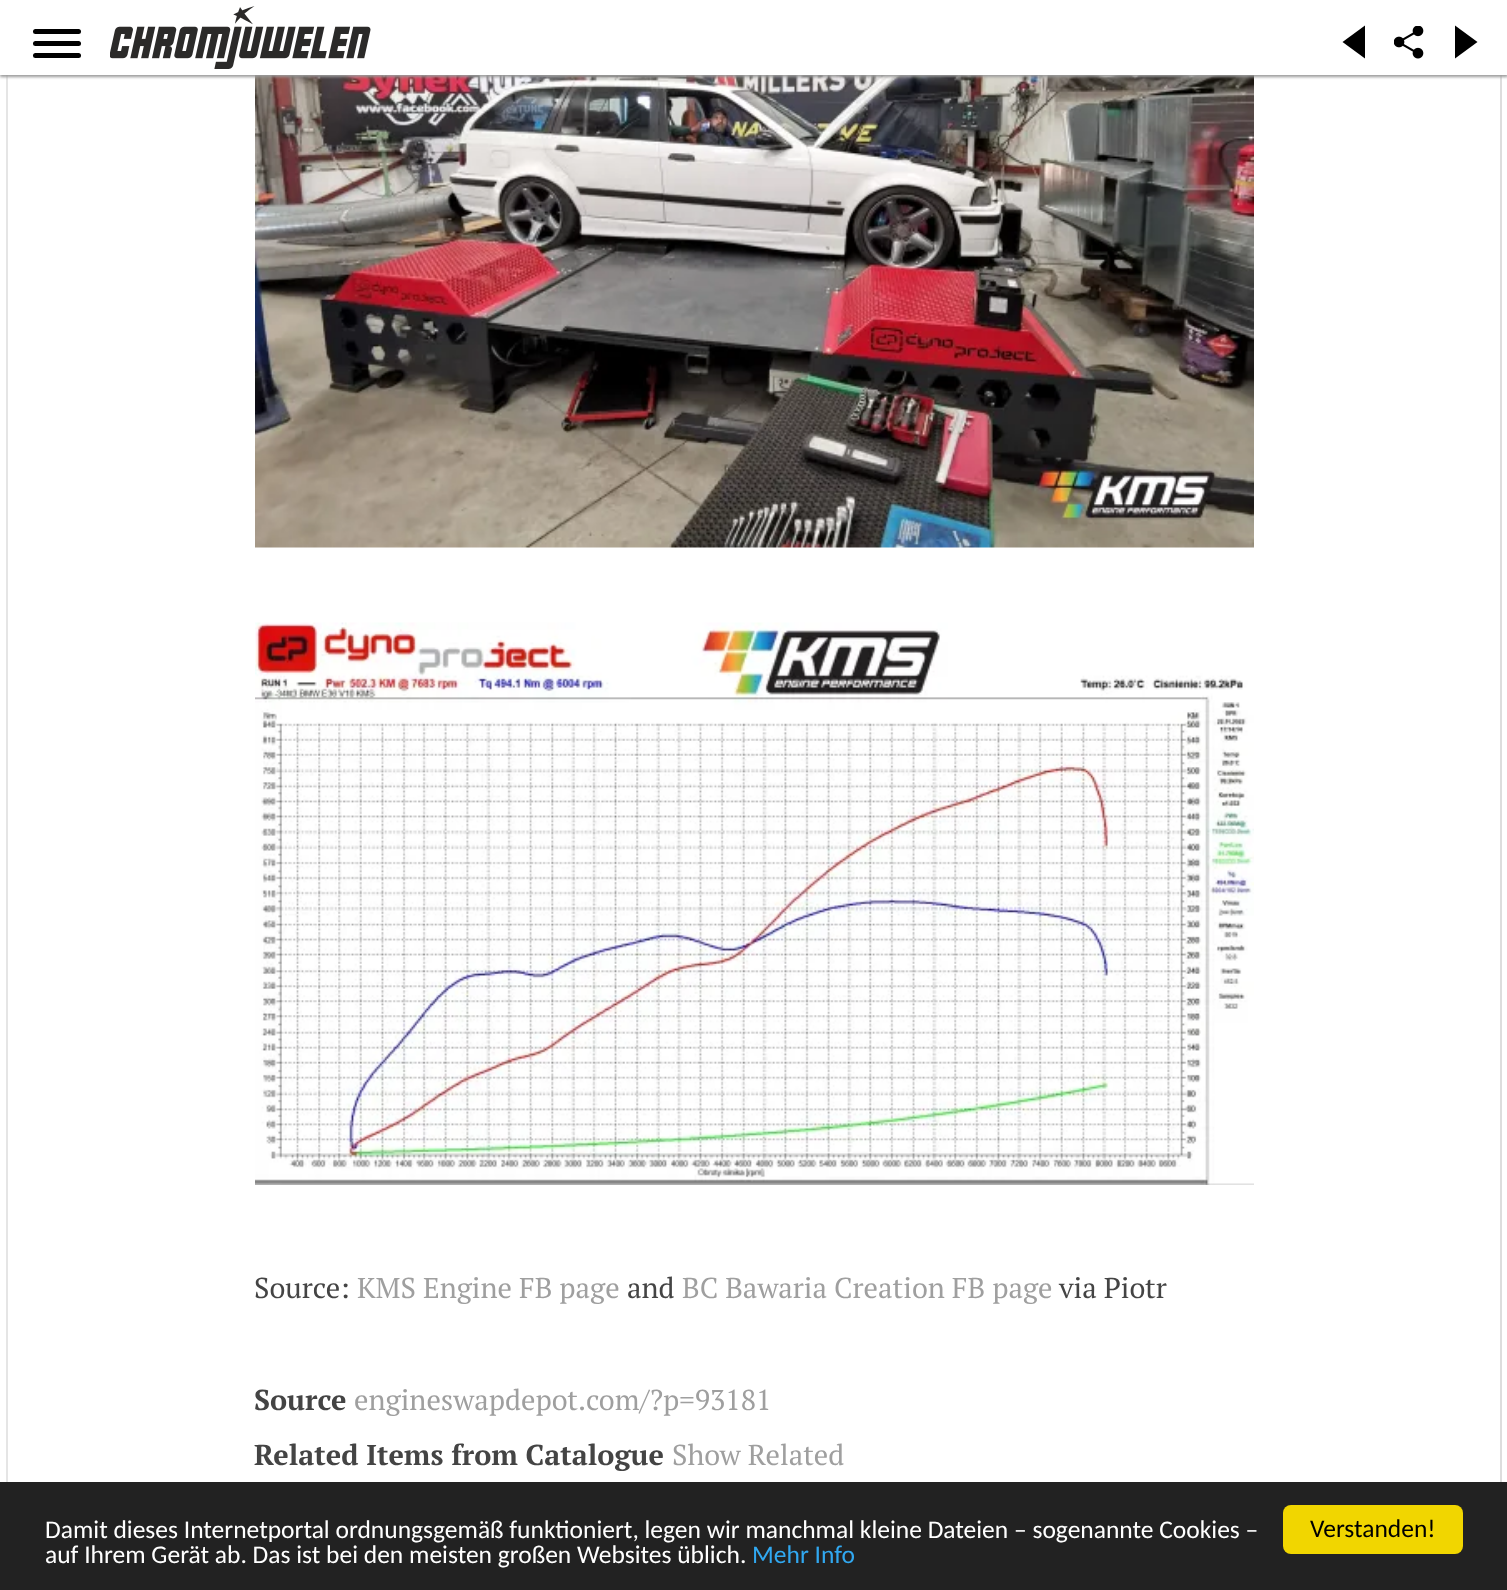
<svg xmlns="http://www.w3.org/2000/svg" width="1507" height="1590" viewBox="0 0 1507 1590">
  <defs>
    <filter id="blur1" x="-50%" y="-200%" width="200%" height="500%"><feGaussianBlur stdDeviation="1.5"/></filter>
  </defs>
  <rect width="100%" height="100%" fill="#ffffff"/>
  <rect x="6" y="75" width="2" height="1407" fill="#e5e5e5"/>
  <image x="255" y="75" width="999" height="473" href="img3.png"/>
  <rect x="1500" y="75" width="2" height="1407" fill="#dddddd"/>
  <rect x="0" y="2" width="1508" height="75" fill="#999999" filter="url(#blur1)"/>
  <rect x="0" y="0" width="1507" height="75" fill="#ffffff"/>
  <image x="110" y="6" width="261" height="63" href="img1.png"/>
  <path d="M1365 25.5V58.5L1342.5 42Z" fill="#000000"/>
  <path d="M1455 58.5V25.5L1477.5 42Z" fill="#000000"/>
  <rect x="33" y="29" width="48" height="5" rx="2.5" fill="#000000"/>
  <rect x="33" y="41" width="48" height="5" rx="2.5" fill="#000000"/>
  <rect x="33" y="53" width="48" height="5" rx="2.5" fill="#000000"/>
  <image x="1394" y="26" width="30" height="33" href="img2.png"/>
  <image x="255" y="622" width="999" height="563" href="img4.png"/>
  <text x="254" y="1298" font-family="PT Serif" font-size="28.75" fill="#444444">Source:</text>
  <text x="357" y="1298" font-family="PT Serif" font-size="28.75" fill="#9f9f9f">KMS Engine FB page</text>
  <text x="627" y="1298" font-family="PT Serif" font-size="28.75" fill="#444444">and</text>
  <text x="682" y="1298" font-family="PT Serif" font-size="28.75" fill="#9f9f9f">BC Bawaria Creation FB page</text>
  <text x="1059" y="1298" font-family="PT Serif" font-size="28.75" fill="#444444">via Piotr</text>
  <text x="254" y="1410" font-family="PT Serif" font-size="28.75" font-weight="bold" fill="#444444">Source</text>
  <text x="354" y="1410" font-family="PT Serif" font-size="28.75" fill="#9f9f9f">engineswapdepot.com/?p=93181</text>
  <text x="254" y="1465" font-family="PT Serif" font-size="28.75" font-weight="bold" fill="#444444">Related Items from Catalogue</text>
  <text x="672" y="1465" font-family="PT Serif" font-size="28.75" fill="#9f9f9f">Show Related</text>
  <rect x="0" y="1482" width="1507" height="108" fill="#222222"/>
  <text x="45" y="1538" font-family="Carlito" font-size="25.5" fill="#ffffff">Damit dieses Internetportal ordnungsgemäß funktioniert, legen wir manchmal kleine Dateien – sogenannte Cookies –</text>
  <text x="45" y="1563" font-family="Carlito" font-size="25.5" fill="#ffffff">auf Ihrem Gerät ab. Das ist bei den meisten großen Websites üblich.</text>
  <text x="752" y="1563" font-family="Carlito" font-size="25.5" fill="#31a8f0">Mehr Info</text>
  <rect x="1283" y="1505" width="180" height="49" rx="8" fill="#f1d600"/>
  <text x="1310" y="1537" font-family="Carlito" font-size="25.5" fill="#000000">Verstanden!</text>
</svg>
